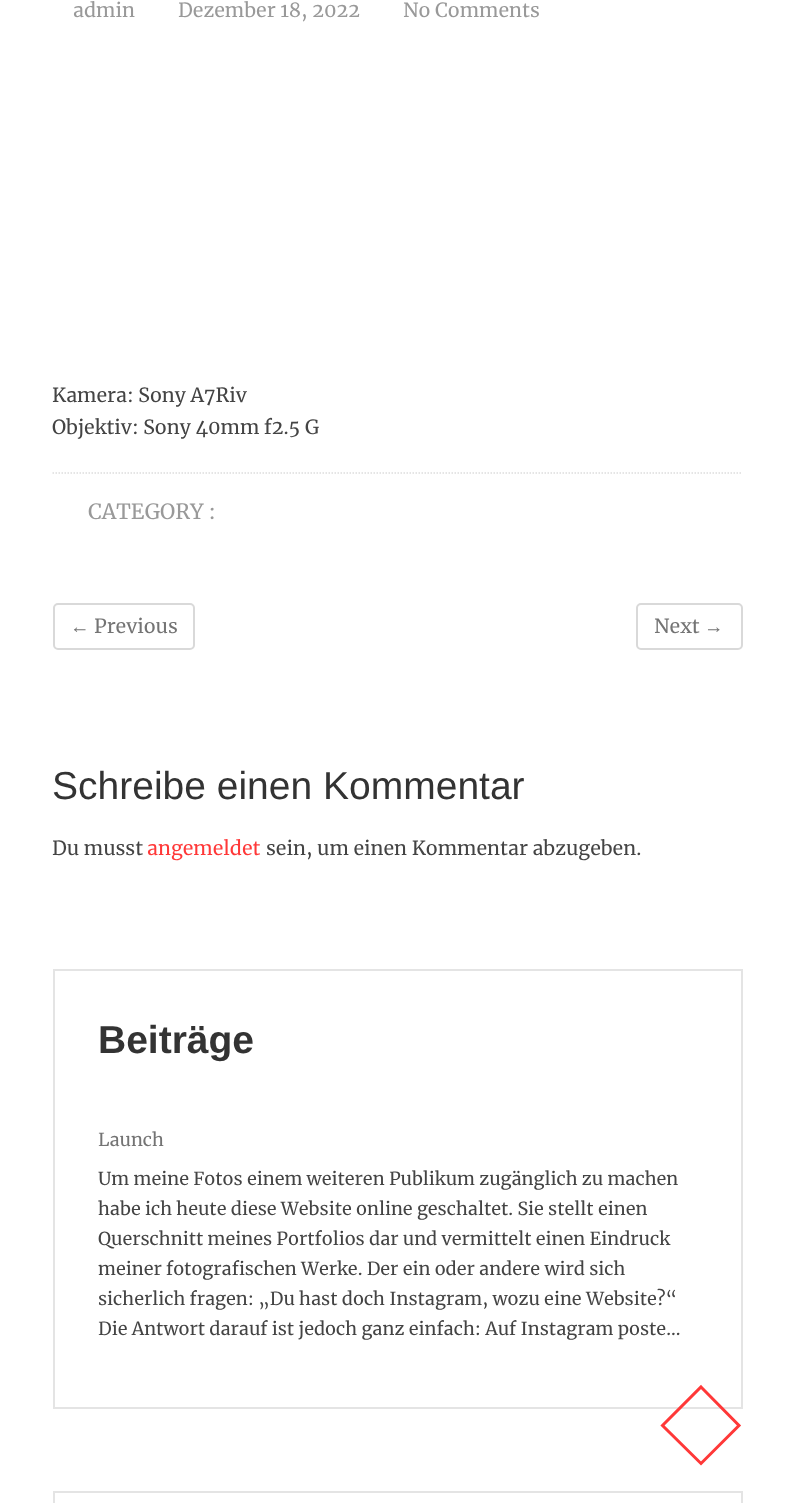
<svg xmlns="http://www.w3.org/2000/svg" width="793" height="1503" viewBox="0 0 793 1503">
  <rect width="100%" height="100%" fill="#ffffff"/>
  <text x="73" y="17" font-family="Merriweather" font-size="19.5" fill="#999999">admin</text>
  <text x="178" y="17" font-family="Merriweather" font-size="19.5" fill="#999999">Dezember 18, 2022</text>
  <text x="403" y="17" font-family="Merriweather" font-size="19.5" fill="#999999">No Comments</text>
  <text x="52" y="402" font-family="Merriweather" font-size="19.5" fill="#444444">Kamera: Sony A7Riv</text>
  <text x="52" y="434" font-family="Merriweather" font-size="19.5" fill="#444444">Objektiv: Sony 40mm f2.5 G</text>
  <path d="M52.5 473H742.5" fill="none" stroke="#dddddd" stroke-width="1.5" stroke-dasharray="1.5 1.5"/>
  <text x="88" y="519" font-family="Merriweather" font-size="21" fill="#999999">CATEGORY :</text>
  <rect x="54" y="604" width="140" height="45" rx="4" fill="none" stroke="#d9d9d9" stroke-width="2"/>
  <text x="70" y="633" font-family="Liberation Sans" font-size="19.5" fill="#747474">←</text>
  <text x="94" y="633" font-family="Merriweather" font-size="19.5" fill="#747474">Previous</text>
  <rect x="637" y="604" width="105" height="45" rx="4" fill="none" stroke="#d9d9d9" stroke-width="2"/>
  <text x="654" y="633" font-family="Merriweather" font-size="19.5" fill="#747474">Next</text>
  <text x="704" y="633" font-family="Liberation Sans" font-size="19.5" fill="#747474">→</text>
  <text x="52" y="799" font-family="Liberation Sans" font-size="39" fill="#333333">Schreibe einen Kommentar</text>
  <text x="52" y="855" font-family="Merriweather" font-size="19.5" fill="#444444">Du musst</text>
  <text x="147" y="855" font-family="Merriweather" font-size="19.5" fill="#ff3838">angemeldet</text>
  <text x="266" y="855" font-family="Merriweather" font-size="19.5" fill="#444444">sein, um einen Kommentar abzugeben.</text>
  <rect x="54" y="970" width="688" height="438" fill="none" stroke="#e4e4e4" stroke-width="2"/>
  <text x="98" y="1053" font-family="Liberation Sans" font-size="39" font-weight="bold" fill="#333333">Beiträge</text>
  <text x="98" y="1146" font-family="Merriweather" font-size="18" fill="#747474">Launch</text>
  <text x="98" y="1185" font-family="Merriweather" font-size="18" fill="#444444">Um meine Fotos einem weiteren Publikum zugänglich zu machen</text>
  <text x="98" y="1215" font-family="Merriweather" font-size="18" fill="#444444">habe ich heute diese Website online geschaltet. Sie stellt einen</text>
  <text x="98" y="1245" font-family="Merriweather" font-size="18" fill="#444444">Querschnitt meines Portfolios dar und vermittelt einen Eindruck</text>
  <text x="98" y="1275" font-family="Merriweather" font-size="18" fill="#444444">meiner fotografischen Werke. Der ein oder andere wird sich</text>
  <text x="98" y="1305" font-family="Merriweather" font-size="18" fill="#444444">sicherlich fragen: „Du hast doch Instagram, wozu eine Website?“</text>
  <text x="98" y="1335" font-family="Merriweather" font-size="18" fill="#444444">Die Antwort darauf ist jedoch ganz einfach: Auf Instagram poste…</text>
  <rect x="54" y="1492" width="688" height="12" fill="none" stroke="#e4e4e4" stroke-width="2"/>
  <path d="M701 1387L739 1425.5L701 1463.5L662.5 1425.5Z" fill="none" stroke="#ff3838" stroke-width="3"/>
</svg>
